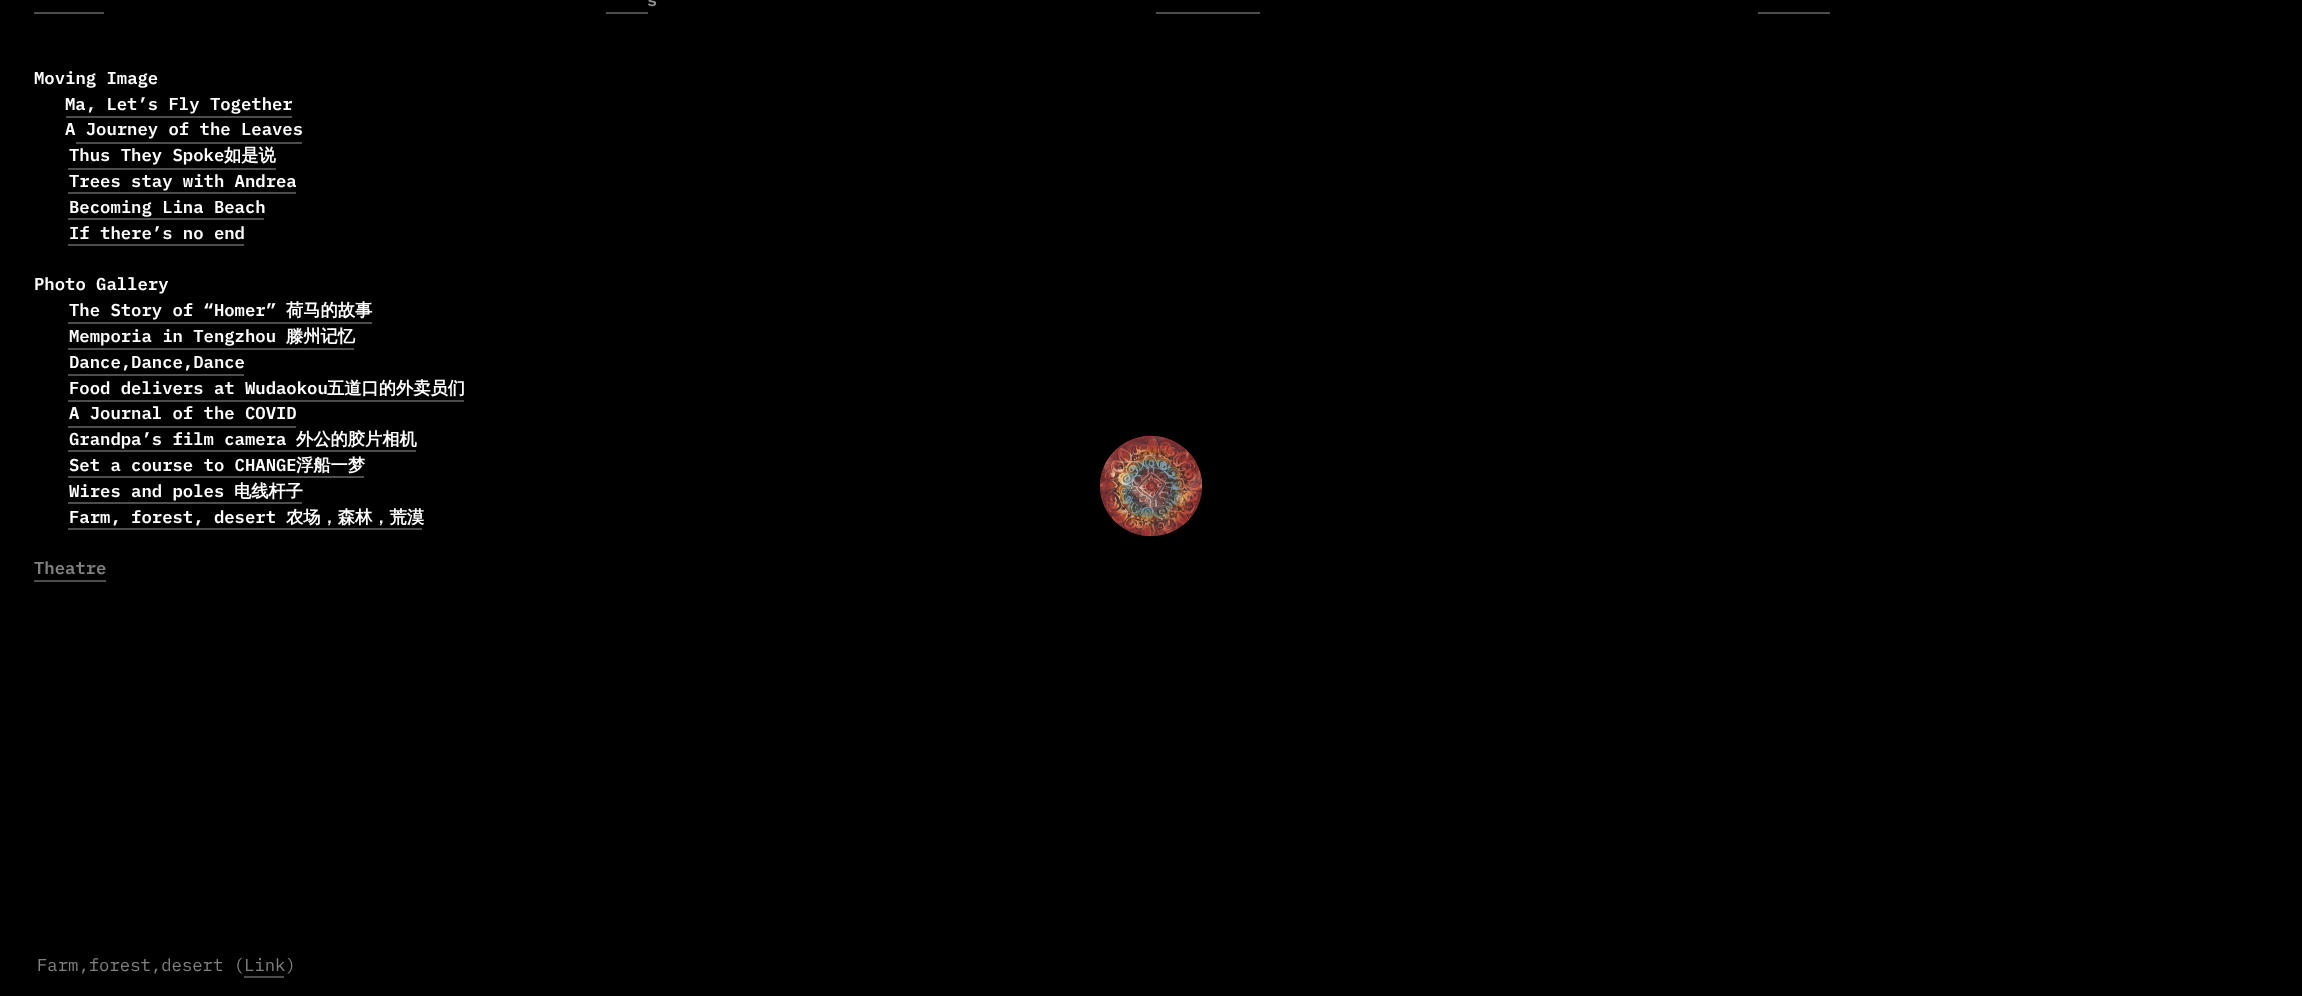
<svg xmlns="http://www.w3.org/2000/svg" width="2302" height="996" viewBox="0 0 2302 996">
  <rect width="100%" height="100%" fill="#000000"/>
  <text x="647" y="6" font-family="IBM Plex Mono" font-size="17.25" font-weight="600" fill="#909090">s</text>
  <rect x="606" y="12" width="42" height="2" fill="#4d4d4d"/>
  <rect x="34" y="12" width="70" height="2" fill="#4d4d4d"/>
  <rect x="1156" y="12" width="104" height="2" fill="#4d4d4d"/>
  <rect x="1758" y="12" width="72" height="2" fill="#4d4d4d"/>
  <text x="34" y="84" font-family="IBM Plex Mono" font-size="17.25" font-weight="600" fill="#ffffff">Moving Image</text>
  <text x="65" y="110" font-family="IBM Plex Mono" font-size="17.25" font-weight="600" fill="#ffffff">Ma, Let’s Fly Together</text>
  <rect x="66" y="116" width="226" height="2" fill="#4d4d4d"/>
  <text x="65" y="135" font-family="IBM Plex Mono" font-size="17.25" font-weight="600" fill="#ffffff">A Journey of the Leaves</text>
  <rect x="76" y="142" width="226" height="2" fill="#4d4d4d"/>
  <text x="69" y="161" font-family="IBM Plex Mono" font-size="17.25" font-weight="600" fill="#ffffff">Thus They Spoke</text>
  <rect x="68" y="168" width="208" height="2" fill="#4d4d4d"/>
  <text x="224" y="161" font-family="WenQuanYi Zen Hei" font-size="17.25" font-weight="bold" fill="#ffffff">如是说</text>
  <text x="69" y="187" font-family="IBM Plex Mono" font-size="17.25" font-weight="600" fill="#ffffff">Trees stay with Andrea</text>
  <rect x="68" y="192" width="228" height="2" fill="#4d4d4d"/>
  <text x="69" y="213" font-family="IBM Plex Mono" font-size="17.25" font-weight="600" fill="#ffffff">Becoming Lina Beach</text>
  <rect x="68" y="218" width="196" height="2" fill="#4d4d4d"/>
  <text x="69" y="239" font-family="IBM Plex Mono" font-size="17.25" font-weight="600" fill="#ffffff">If there’s no end</text>
  <rect x="68" y="244" width="176" height="2" fill="#4d4d4d"/>
  <text x="34" y="290" font-family="IBM Plex Mono" font-size="17.25" font-weight="600" fill="#ffffff">Photo Gallery</text>
  <text x="69" y="316" font-family="IBM Plex Mono" font-size="17.25" font-weight="600" fill="#ffffff">The Story of “Homer”</text>
  <rect x="68" y="322" width="304" height="2" fill="#4d4d4d"/>
  <text x="286" y="316" font-family="WenQuanYi Zen Hei" font-size="17.25" font-weight="bold" fill="#ffffff">荷马的故事</text>
  <text x="69" y="342" font-family="IBM Plex Mono" font-size="17.25" font-weight="600" fill="#ffffff">Memporia in Tengzhou</text>
  <rect x="68" y="348" width="286" height="2" fill="#4d4d4d"/>
  <text x="286" y="342" font-family="WenQuanYi Zen Hei" font-size="17.25" font-weight="bold" fill="#ffffff">滕州记忆</text>
  <text x="69" y="368" font-family="IBM Plex Mono" font-size="17.25" font-weight="600" fill="#ffffff">Dance,Dance,Dance</text>
  <rect x="68" y="374" width="176" height="2" fill="#4d4d4d"/>
  <text x="69" y="394" font-family="IBM Plex Mono" font-size="17.25" font-weight="600" fill="#ffffff">Food delivers at Wudaokou</text>
  <rect x="68" y="400" width="396" height="2" fill="#4d4d4d"/>
  <text x="327" y="394" font-family="WenQuanYi Zen Hei" font-size="17.25" font-weight="bold" fill="#ffffff">五道口的外卖员们</text>
  <text x="69" y="419" font-family="IBM Plex Mono" font-size="17.25" font-weight="600" fill="#ffffff">A Journal of the COVID</text>
  <text x="69" y="445" font-family="IBM Plex Mono" font-size="17.25" font-weight="600" fill="#ffffff">Grandpa’s film camera</text>
  <rect x="68" y="450" width="348" height="2" fill="#4d4d4d"/>
  <text x="296" y="445" font-family="WenQuanYi Zen Hei" font-size="17.25" font-weight="bold" fill="#ffffff">外公的胶片相机</text>
  <rect x="68" y="426" width="228" height="2" fill="#4d4d4d"/>
  <text x="69" y="471" font-family="IBM Plex Mono" font-size="17.25" font-weight="600" fill="#ffffff">Set a course to CHANGE</text>
  <rect x="68" y="476" width="296" height="2" fill="#4d4d4d"/>
  <text x="296" y="471" font-family="WenQuanYi Zen Hei" font-size="17.25" font-weight="bold" fill="#ffffff">浮船一梦</text>
  <text x="69" y="497" font-family="IBM Plex Mono" font-size="17.25" font-weight="600" fill="#ffffff">Wires and poles</text>
  <rect x="68" y="502" width="234" height="2" fill="#4d4d4d"/>
  <text x="234" y="497" font-family="WenQuanYi Zen Hei" font-size="17.25" font-weight="bold" fill="#ffffff">电线杆子</text>
  <text x="69" y="523" font-family="IBM Plex Mono" font-size="17.25" font-weight="600" fill="#ffffff">Farm, forest, desert</text>
  <rect x="68" y="528" width="354" height="2" fill="#4d4d4d"/>
  <text x="286" y="523" font-family="WenQuanYi Zen Hei" font-size="17.25" font-weight="bold" fill="#ffffff">农场，森林，荒漠</text>
  <text x="34" y="574" font-family="IBM Plex Mono" font-size="17.25" font-weight="600" fill="#808080">Theatre</text>
  <rect x="34" y="580" width="72" height="2" fill="#4d4d4d"/>
  <image x="1100" y="436" width="102" height="100" href="img1.png"/>
  <image x="1100" y="436" width="102" height="100" href="img2.png"/>
  <text x="37" y="971" font-family="IBM Plex Mono" font-size="17.25" fill="#808080">Farm,forest,desert (Link)</text>
  <rect x="244" y="976" width="40" height="2" fill="#4d4d4d"/>
</svg>
